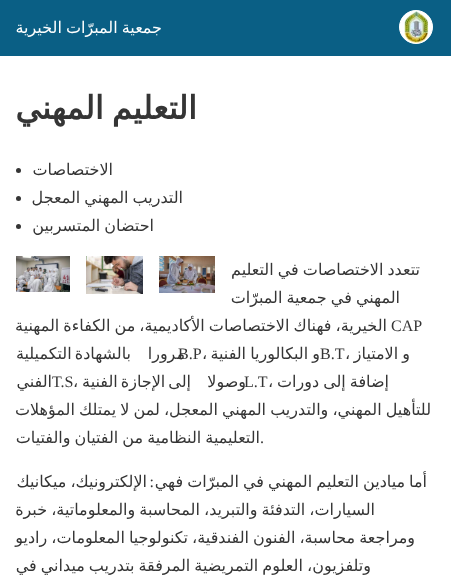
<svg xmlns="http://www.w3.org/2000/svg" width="451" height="584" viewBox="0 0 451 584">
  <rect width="100%" height="100%" fill="#ffffff"/>
  <rect x="0" y="0" width="451" height="56" fill="#0a5f85"/>
  <circle cx="416" cy="27" r="16.5" fill="#ffffff" stroke="#ffffff"/>
  <image x="404" y="11" width="25" height="32" href="img1.png"/>
  <text x="162" y="33" word-spacing="-1" font-family="DejaVu Sans" font-size="16" direction="rtl" fill="#ffffff">جمعية المبرّات الخيرية</text>
  <text x="197" y="119" word-spacing="-2" font-family="DejaVu Sans" font-size="32" font-weight="bold" direction="rtl" fill="#353535">التعليم المهني</text>
  <text x="113" y="175" font-family="DejaVu Sans" font-size="16" direction="rtl" fill="#353535">الاختصاصات</text>
  <circle cx="18.5" cy="170.5" r="2.5" fill="#353535"/>
  <text x="183" y="203" word-spacing="-1" font-family="DejaVu Sans" font-size="16" direction="rtl" fill="#353535">التدريب المهني المعجل</text>
  <circle cx="18.5" cy="198.5" r="2.5" fill="#353535"/>
  <text x="154" y="231" word-spacing="-1" font-family="DejaVu Sans" font-size="16" direction="rtl" fill="#353535">احتضان المتسربين</text>
  <circle cx="18.5" cy="226.5" r="2.5" fill="#353535"/>
  <image x="159" y="256" width="56" height="37" href="img2.png"/>
  <image x="86" y="256" width="57" height="38" href="img3.png"/>
  <image x="16" y="256" width="54" height="36" href="img4.png"/>
  <text x="420" y="275" word-spacing="-1" font-family="DejaVu Sans" font-size="16" direction="rtl" fill="#353535">تتعدد الاختصاصات في التعليم</text>
  <text x="400" y="303" word-spacing="-1" font-family="DejaVu Sans" font-size="16" direction="rtl" fill="#353535">المهني في جمعية المبرّات</text>
  <text x="387" y="331" word-spacing="-1" font-family="DejaVu Sans" font-size="16" direction="rtl" fill="#353535">الخيرية، فهناك الاختصاصات الأكاديمية، من الكفاءة المهنية</text>
  <text x="391" y="331" font-family="Liberation Serif" font-size="16" fill="#353535">CAP</text>
  <text x="410" y="359" word-spacing="-1" font-family="DejaVu Sans" font-size="16" direction="rtl" fill="#353535">و الامتياز</text>
  <text x="345" y="359" font-family="DejaVu Sans" font-size="16" fill="#353535">،</text>
  <text x="320" y="359" word-spacing="-1" font-family="DejaVu Sans" font-size="16" direction="rtl" fill="#353535">و البكالوريا الفنية</text>
  <text x="320" y="359" font-family="Liberation Serif" font-size="16" fill="#353535">B.T</text>
  <text x="202" y="359" font-family="DejaVu Sans" font-size="16" fill="#353535">،</text>
  <text x="185" y="359" font-family="DejaVu Sans" font-size="16" direction="rtl" fill="#353535">مرورا</text>
  <text x="178" y="359" font-family="Liberation Serif" font-size="16" fill="#353535">B.P</text>
  <text x="131" y="359" word-spacing="-2" font-family="DejaVu Sans" font-size="16" direction="rtl" fill="#353535">بالشهادة التكميلية</text>
  <text x="389" y="387" word-spacing="-1" font-family="DejaVu Sans" font-size="16" direction="rtl" fill="#353535">إضافة إلى دورات</text>
  <text x="268" y="387" font-family="DejaVu Sans" font-size="16" fill="#353535">،</text>
  <text x="246" y="387" font-family="DejaVu Sans" font-size="16" direction="rtl" fill="#353535">وصولا</text>
  <text x="244" y="387" font-family="Liberation Serif" font-size="16" fill="#353535">L.T</text>
  <text x="191" y="387" word-spacing="-2" font-family="DejaVu Sans" font-size="16" direction="rtl" fill="#353535">إلى الإجازة الفنية</text>
  <text x="73" y="387" font-family="DejaVu Sans" font-size="16" fill="#353535">،</text>
  <text x="52" y="387" font-family="Liberation Serif" font-size="16" fill="#353535">T.S</text>
  <text x="52" y="387" font-family="DejaVu Sans" font-size="16" direction="rtl" fill="#353535">الفني</text>
  <text x="431" y="415" word-spacing="-1" font-family="DejaVu Sans" font-size="16" direction="rtl" fill="#353535">للتأهيل المهني، والتدريب المهني المعجل، لمن لا يمتلك المؤهلات</text>
  <text x="260" y="443" word-spacing="-1" font-family="DejaVu Sans" font-size="16" direction="rtl" fill="#353535">التعليمية النظامية من الفتيان والفتيات</text>
  <text x="260" y="443" font-family="Liberation Serif" font-size="16" fill="#353535">.</text>
  <text x="427" y="487" word-spacing="-1" font-family="DejaVu Sans" font-size="16" direction="rtl" fill="#353535">أما ميادين التعليم المهني في المبرّات فهي</text>
  <text x="154" y="487" font-family="Liberation Serif" font-size="16" direction="rtl" fill="#353535">:</text>
  <text x="147" y="487" word-spacing="-1" font-family="DejaVu Sans" font-size="16" direction="rtl" fill="#353535">الإلكترونيك، ميكانيك</text>
  <text x="375" y="515" word-spacing="-1" font-family="DejaVu Sans" font-size="16" direction="rtl" fill="#353535">السيارات، التدفئة والتبريد، المحاسبة والمعلوماتية، خبرة</text>
  <text x="415" y="543" word-spacing="-1" font-family="DejaVu Sans" font-size="16" direction="rtl" fill="#353535">ومراجعة محاسبة، الفنون الفندقية، تكنولوجيا المعلومات، راديو</text>
  <text x="371" y="571" word-spacing="-1" font-family="DejaVu Sans" font-size="16" direction="rtl" fill="#353535">وتلفزيون، العلوم التمريضية المرفقة بتدريب ميداني في</text>
</svg>
